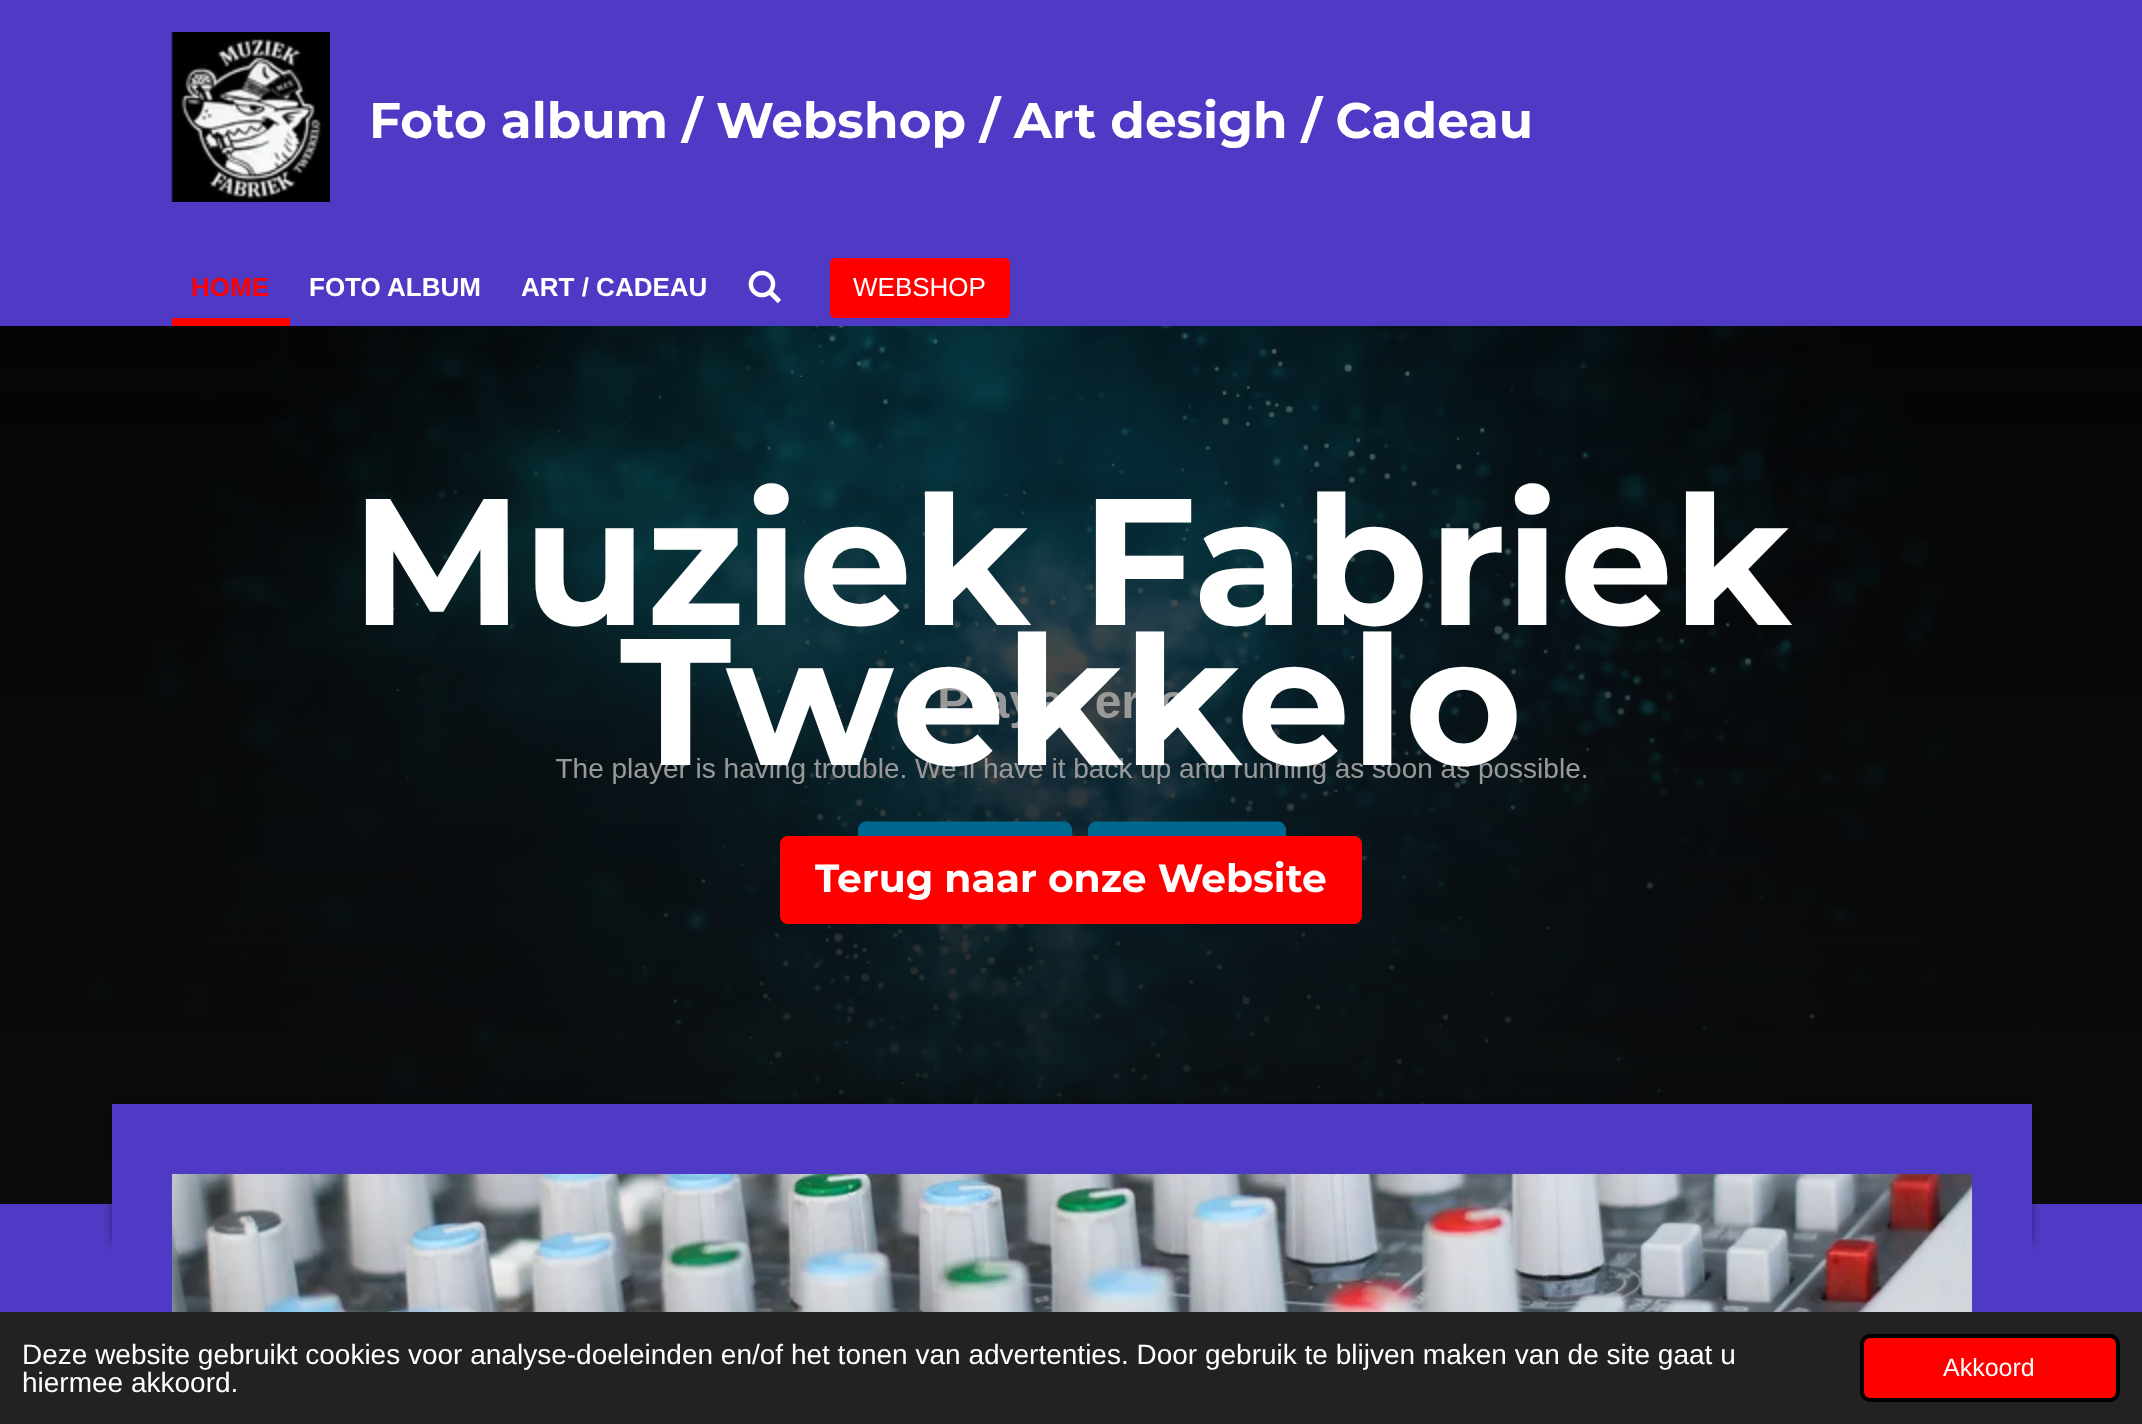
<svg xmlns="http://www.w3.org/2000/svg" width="2142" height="1424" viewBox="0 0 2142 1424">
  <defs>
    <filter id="blur1" x="-50%" y="-200%" width="200%" height="500%"><feGaussianBlur stdDeviation="5"/></filter>
  </defs>
  <rect width="100%" height="100%" fill="#4e3ac4"/>
  <image x="171" y="32" width="159" height="170" href="img1.png"/>
  <text x="369" y="138" font-family="Montserrat" font-size="50" font-weight="bold" fill="#ffffff">Foto album / Webshop / Art desigh / Cadeau</text>
  <rect x="172" y="318" width="118" height="8" fill="#ff0000"/>
  <text x="191" y="296" font-family="Liberation Sans" font-size="26" font-weight="bold" fill="#ff0000">HOME</text>
  <text x="309" y="296" font-family="Liberation Sans" font-size="26" font-weight="bold" fill="#ffffff">FOTO ALBUM</text>
  <text x="521" y="296" font-family="Liberation Sans" font-size="26" font-weight="bold" fill="#ffffff">ART / CADEAU</text>
  <image x="748" y="270" width="34" height="34" href="img2.png"/>
  <rect x="830" y="258" width="180" height="60" rx="5" fill="#ff0000"/>
  <text x="853" y="296" font-family="Liberation Sans" font-size="26" fill="#ffffff">WEBSHOP</text>
  <image x="0" y="326" width="2142" height="878" href="img3.png"/>
  <image x="0" y="326" width="2142" height="878" href="img4.png"/>
  <text x="351" y="625" font-family="Montserrat" font-size="180" font-weight="bold" fill="#ffffff">Muziek Fabriek</text>
  <text x="620" y="765" font-family="Montserrat" font-size="180" font-weight="bold" fill="#ffffff">Twekkelo</text>
  <rect x="780" y="836" width="582" height="88" rx="8" fill="#ff0000"/>
  <text x="815" y="892" font-family="Montserrat" font-size="39.25" font-weight="bold" fill="#ffffff">Terug naar onze Website</text>
  <rect x="112" y="1104" width="1920" height="140" fill="#000000" fill-opacity="0.4" filter="url(#blur1)"/>
  <rect x="112" y="1104" width="1920" height="149" fill="#4e3ac4"/>
  <image x="172" y="1174" width="1800" height="138" href="img5.png"/>
  <rect x="0" y="1312" width="2142" height="112" fill="#222222"/>
  <text x="22" y="1364" font-family="Liberation Sans" font-size="28" fill="#ffffff">Deze website gebruikt cookies voor analyse-doeleinden en/of het tonen van advertenties. Door gebruik te blijven maken van de site gaat u</text>
  <text x="22" y="1392" font-family="Liberation Sans" font-size="28" fill="#ffffff">hiermee akkoord.</text>
  <rect x="1862" y="1336" width="256" height="64" rx="8" fill="#ff0000" stroke="#000000" stroke-width="4"/>
  <text x="1943" y="1376" font-family="Liberation Sans" font-size="25" fill="#ffffff">Akkoord</text>
</svg>
